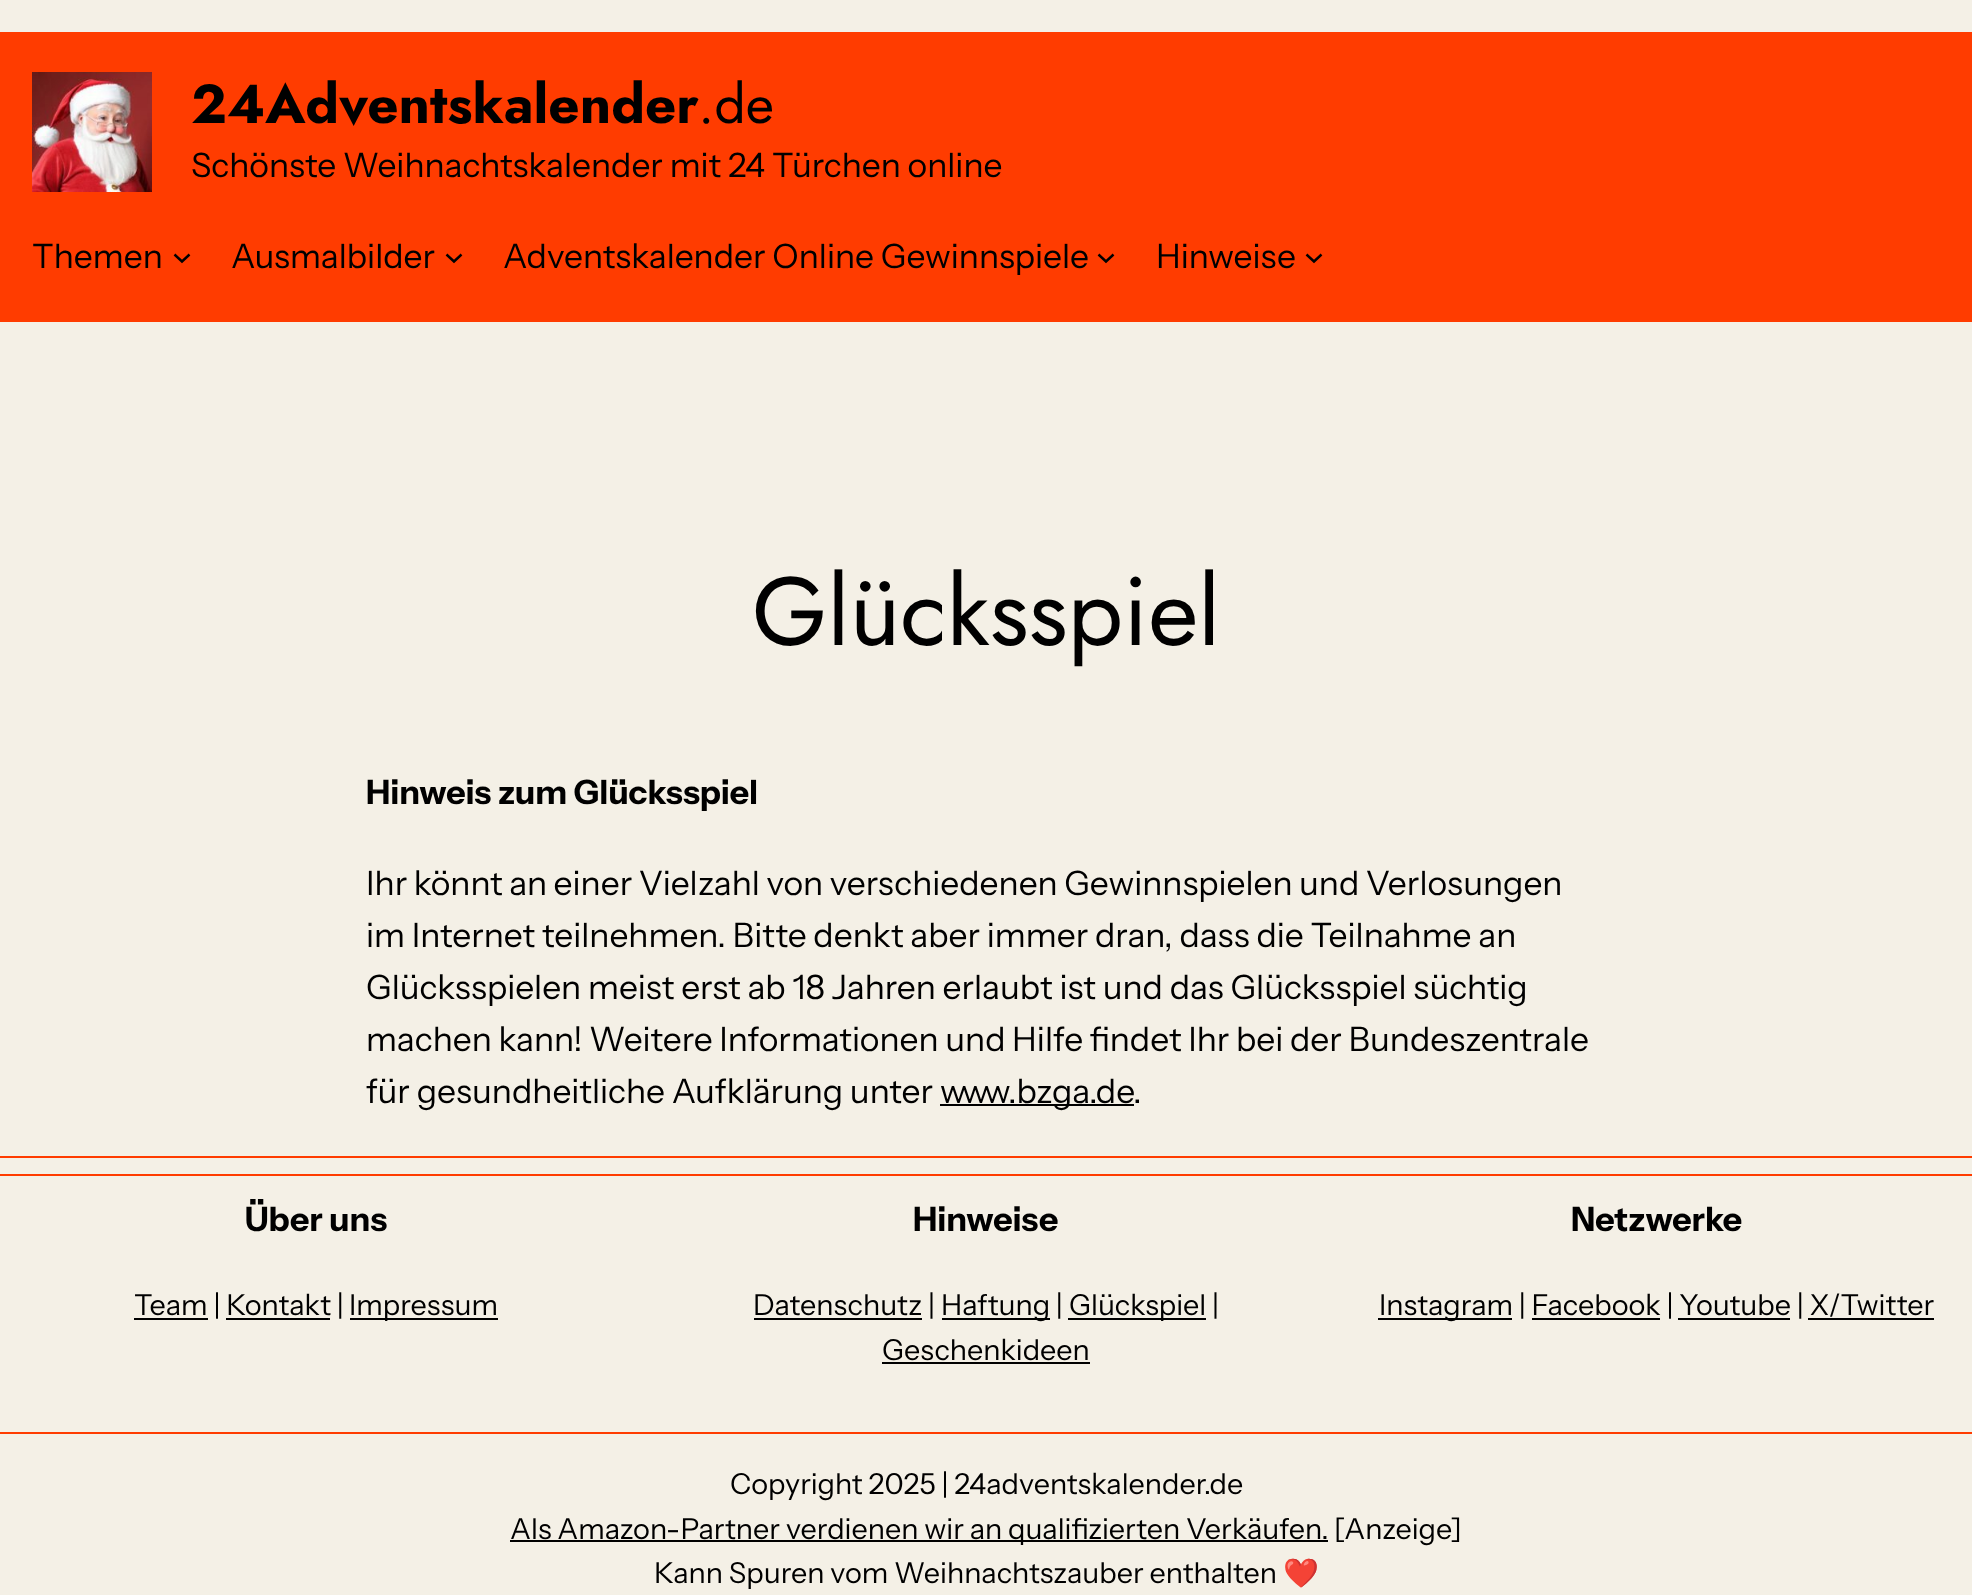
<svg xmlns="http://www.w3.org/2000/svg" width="1972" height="1595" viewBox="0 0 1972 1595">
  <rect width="100%" height="100%" fill="#f4f0e6"/>
  <rect x="0" y="32" width="1972" height="290" fill="#ff3c00"/>
  <image x="32" y="72" width="120" height="120" href="img1.png"/>
  <text x="191" y="123" font-family="Jost" font-size="54.75" font-weight="bold" fill="#000000">24Adventskalender</text>
  <text x="698" y="123" font-family="Jost" font-size="54.75" fill="#000000">.de</text>
  <text x="191" y="177" font-family="Instrument Sans" font-size="33.6" fill="#000000">Schönste Weihnachtskalender mit 24 Türchen online</text>
  <text x="32" y="268" font-family="Instrument Sans" font-size="33.6" fill="#000000">Themen</text>
  <path d="M174.5 254.5L182 261.5L189.5 254.5" fill="none" stroke="#000000" stroke-width="2.5"/>
  <text x="231" y="268" font-family="Instrument Sans" font-size="33.6" fill="#000000">Ausmalbilder</text>
  <path d="M446.5 254.5L454 261.5L461.5 254.5" fill="none" stroke="#000000" stroke-width="2.5"/>
  <text x="503" y="268" font-family="Instrument Sans" font-size="33.6" fill="#000000">Adventskalender Online Gewinnspiele</text>
  <path d="M1098.5 254.5L1106 261.5L1113.5 254.5" fill="none" stroke="#000000" stroke-width="2.5"/>
  <text x="1156" y="268" font-family="Instrument Sans" font-size="33.6" fill="#000000">Hinweise</text>
  <path d="M1306.5 254.5L1314 261.5L1321.5 254.5" fill="none" stroke="#000000" stroke-width="2.5"/>
  <text x="752" y="645" font-family="Jost" font-size="97" fill="#000000">Glücksspiel</text>
  <text x="366" y="804" font-family="Instrument Sans" font-size="33.6" font-weight="bold" fill="#000000">Hinweis zum Glücksspiel</text>
  <text x="366" y="895" word-spacing="-0.25" font-family="Instrument Sans" font-size="33.6" fill="#000000">Ihr könnt an einer Vielzahl von verschiedenen Gewinnspielen und Verlosungen</text>
  <text x="366" y="947" font-family="Instrument Sans" font-size="33.6" fill="#000000">im Internet teilnehmen. Bitte denkt aber immer dran, dass die Teilnahme an</text>
  <text x="366" y="999" font-family="Instrument Sans" font-size="33.6" fill="#000000">Glücksspielen meist erst ab 18 Jahren erlaubt ist und das Glücksspiel süchtig</text>
  <text x="366" y="1051" word-spacing="-0.1" font-family="Instrument Sans" font-size="33.6" fill="#000000">machen kann! Weitere Informationen und Hilfe findet Ihr bei der Bundeszentrale</text>
  <text x="366" y="1103" font-family="Instrument Sans" font-size="33.6" fill="#000000">für gesundheitliche Aufklärung unter</text>
  <rect x="940" y="1104" width="194" height="2" fill="#000000"/>
  <text x="940" y="1103" font-family="Instrument Sans" font-size="33.6" fill="#000000">www.bzga.de</text>
  <text x="1133" y="1103" font-family="Instrument Sans" font-size="33.6" fill="#000000">.</text>
  <rect x="0" y="1156" width="1972" height="2" fill="#ff3c00"/>
  <rect x="0" y="1174" width="1972" height="2" fill="#ff3c00"/>
  <text x="245" y="1231" font-family="Instrument Sans" font-size="33.6" font-weight="bold" fill="#000000">Über uns</text>
  <rect x="134" y="1318" width="74" height="2" fill="#000000"/>
  <text x="134" y="1315" font-family="Instrument Sans" font-size="28.8" fill="#000000">Team | Kontakt |</text>
  <rect x="350" y="1318" width="148" height="2" fill="#000000"/>
  <text x="349" y="1315" font-family="Instrument Sans" font-size="28.8" fill="#000000">Impressum</text>
  <rect x="226" y="1318" width="104" height="2" fill="#000000"/>
  <text x="913" y="1231" font-family="Instrument Sans" font-size="33.6" font-weight="bold" fill="#000000">Hinweise</text>
  <rect x="754" y="1318" width="168" height="2" fill="#000000"/>
  <text x="753" y="1315" font-family="Instrument Sans" font-size="28.8" fill="#000000">Datenschutz |</text>
  <rect x="942" y="1318" width="108" height="2" fill="#000000"/>
  <text x="941" y="1315" font-family="Instrument Sans" font-size="28.8" fill="#000000">Haftung |</text>
  <rect x="1068" y="1318" width="138" height="2" fill="#000000"/>
  <text x="1069" y="1315" font-family="Instrument Sans" font-size="28.8" fill="#000000">Glückspiel |</text>
  <text x="882" y="1360" font-family="Instrument Sans" font-size="28.8" fill="#000000">Geschenkideen</text>
  <rect x="882" y="1362" width="208" height="2" fill="#000000"/>
  <text x="1571" y="1231" font-family="Instrument Sans" font-size="33.6" font-weight="bold" fill="#000000">Netzwerke</text>
  <rect x="1378" y="1318" width="134" height="2" fill="#000000"/>
  <text x="1379" y="1315" font-family="Instrument Sans" font-size="28.8" fill="#000000">Instagram | Facebook | Youtube | X/Twitter</text>
  <rect x="1532" y="1318" width="128" height="2" fill="#000000"/>
  <rect x="1678" y="1318" width="112" height="2" fill="#000000"/>
  <rect x="1808" y="1318" width="126" height="2" fill="#000000"/>
  <rect x="0" y="1432" width="1972" height="2" fill="#ff3c00"/>
  <text x="730" y="1494" font-family="Instrument Sans" font-size="28.8" fill="#000000">Copyright 2025 | 24adventskalender.de</text>
  <rect x="510" y="1540" width="818" height="2" fill="#000000"/>
  <text x="510" y="1539" font-family="Instrument Sans" font-size="28.8" fill="#000000">Als Amazon-Partner verdienen wir an qualifizierten Verkäufen.</text>
  <text x="1334" y="1539" font-family="Instrument Sans" font-size="28.8" fill="#000000">[Anzeige]</text>
  <text x="654" y="1583" font-family="Instrument Sans" font-size="28.8" fill="#000000">Kann Spuren vom Weihnachtszauber enthalten</text>
  <text x="1283" y="1583" font-family="Noto Color Emoji" font-size="28.8" fill="#000000">❤️</text>
</svg>
